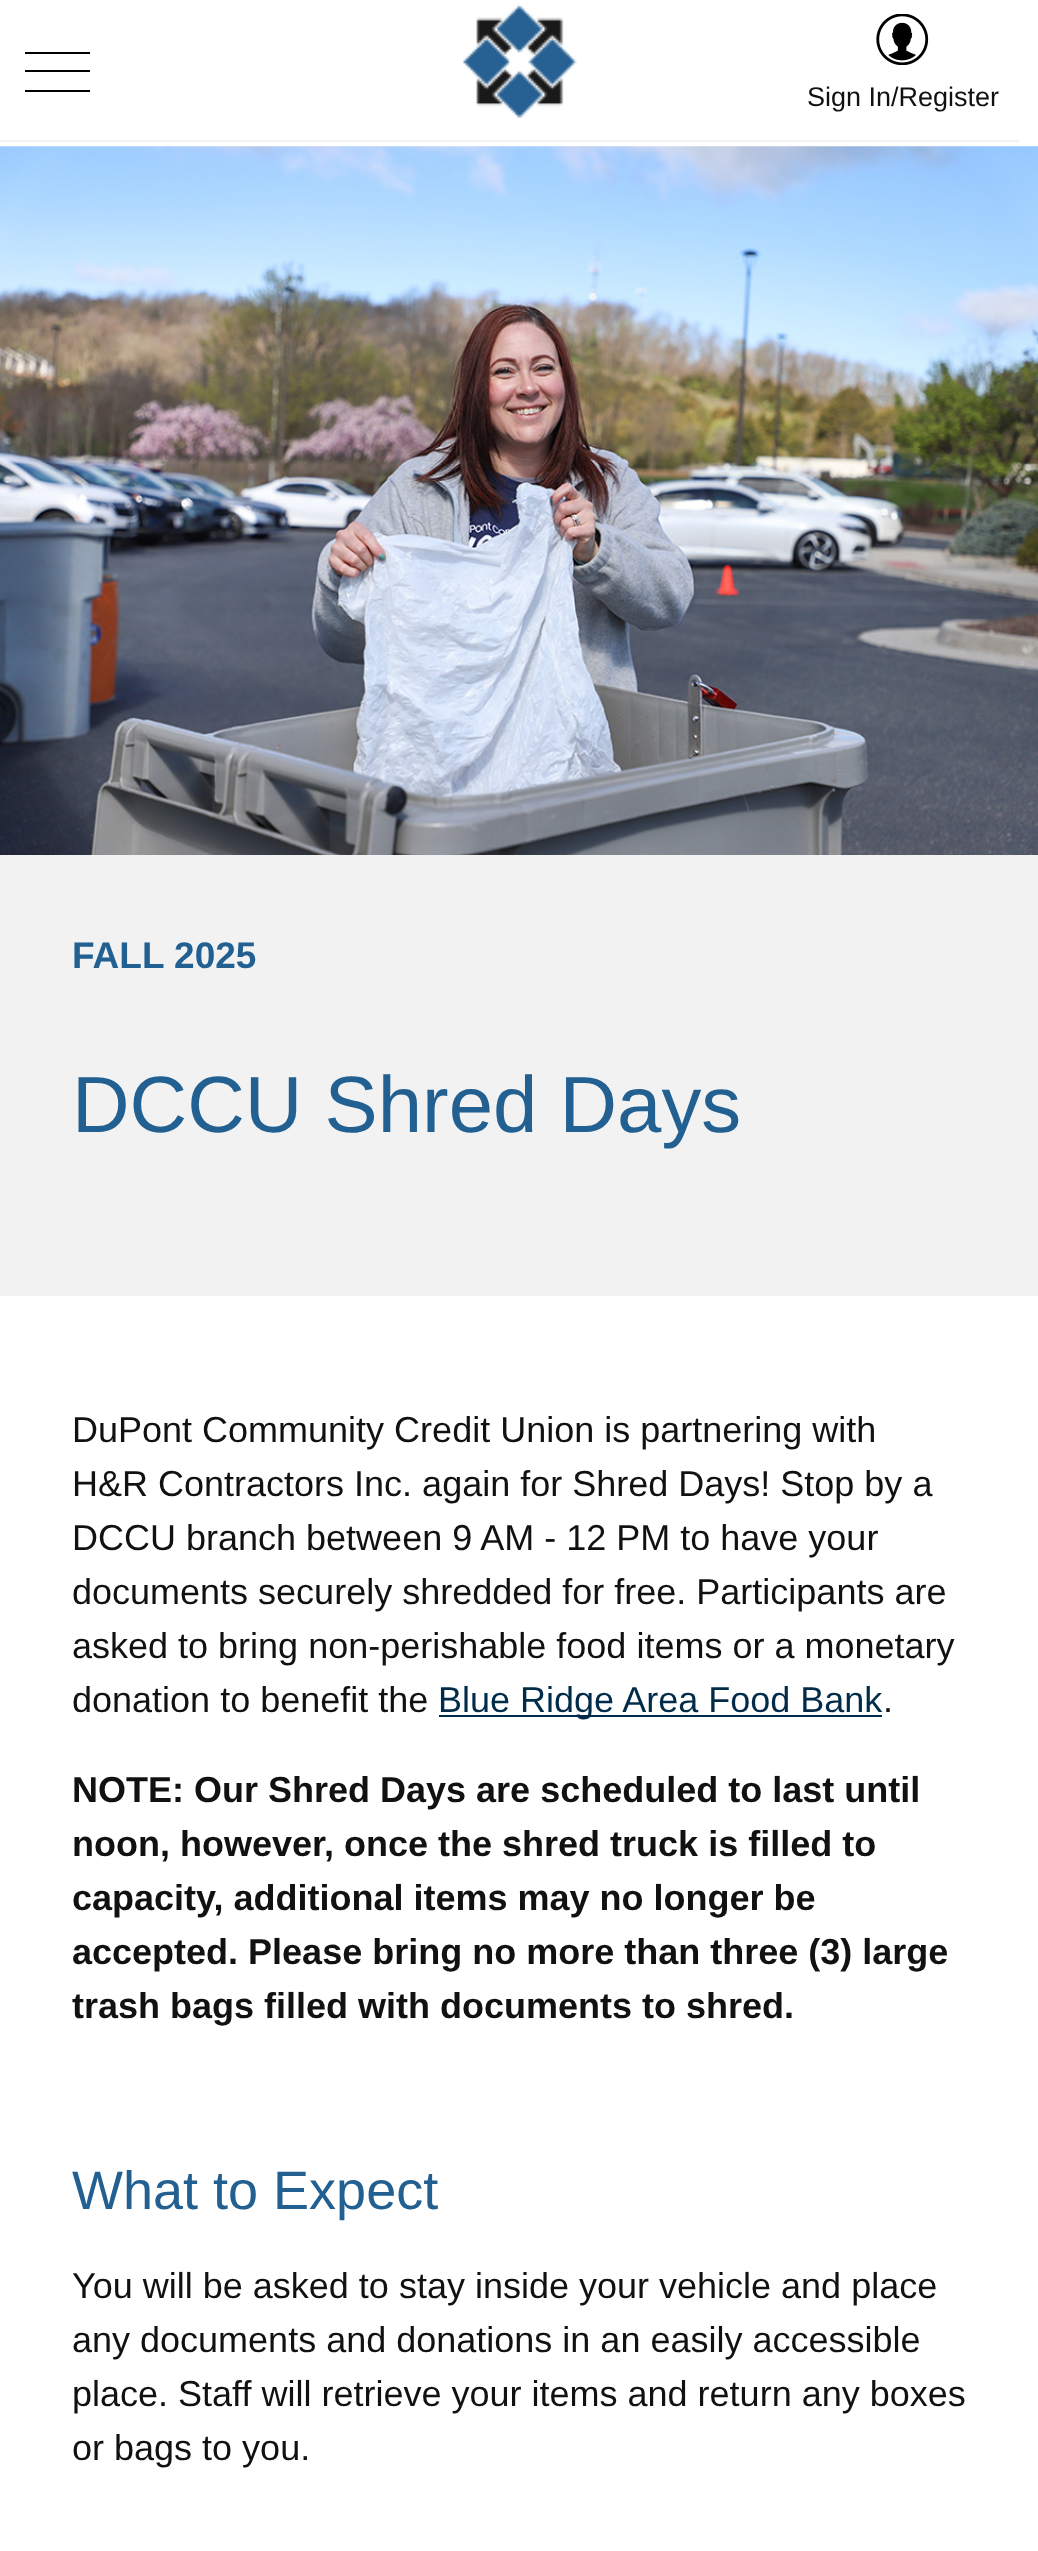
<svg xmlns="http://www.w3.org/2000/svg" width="1038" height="2551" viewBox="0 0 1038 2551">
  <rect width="100%" height="100%" fill="#ffffff"/>
  <rect x="25" y="52" width="65" height="2" fill="#000000"/>
  <rect x="25" y="70" width="65" height="2" fill="#000000"/>
  <rect x="25" y="90" width="65" height="2" fill="#000000"/>
  <image x="463" y="4" width="114" height="115" href="img1.png"/>
  <image x="876" y="14" width="53" height="51" href="img2.png"/>
  <text x="807" y="106" font-family="Liberation Sans" font-size="27" fill="#111111">Sign In/Register</text>
  <rect x="0" y="140" width="1019" height="2" fill="#f2f2f2"/>
  <image x="0" y="146" width="1038" height="709" href="img3.png"/>
  <rect x="0" y="855" width="1038" height="441" fill="#f2f2f2"/>
  <text x="72" y="968" font-family="Liberation Sans" font-size="37" font-weight="bold" fill="#236092">FALL 2025</text>
  <text x="72" y="1132" font-family="Liberation Sans" font-size="79.75" fill="#236092">DCCU Shred Days</text>
  <text x="72" y="1442" font-family="Liberation Sans" font-size="36" fill="#111111">DuPont Community Credit Union is partnering with</text>
  <text x="72" y="1496" font-family="Liberation Sans" font-size="36" fill="#111111">H&amp;R Contractors Inc. again for Shred Days! Stop by a</text>
  <text x="72" y="1550" font-family="Liberation Sans" font-size="36" fill="#111111">DCCU branch between 9 AM - 12 PM to have your</text>
  <text x="72" y="1604" font-family="Liberation Sans" font-size="36" fill="#111111">documents securely shredded for free. Participants are</text>
  <text x="72" y="1658" font-family="Liberation Sans" font-size="36" fill="#111111">asked to bring non-perishable food items or a monetary</text>
  <text x="72" y="1712" font-family="Liberation Sans" font-size="36" fill="#111111">donation to benefit the</text>
  <rect x="439" y="1715" width="443" height="2" fill="#002b49"/>
  <text x="438" y="1712" font-family="Liberation Sans" font-size="36" fill="#002b49">Blue Ridge Area Food Bank</text>
  <text x="883" y="1712" font-family="Liberation Sans" font-size="36" fill="#111111">.</text>
  <text x="72" y="1802" font-family="Liberation Sans" font-size="36" font-weight="bold" fill="#111111">NOTE: Our Shred Days are scheduled to last until</text>
  <text x="72" y="1856" font-family="Liberation Sans" font-size="36" font-weight="bold" fill="#111111">noon, however, once the shred truck is filled to</text>
  <text x="72" y="1910" font-family="Liberation Sans" font-size="36" font-weight="bold" fill="#111111">capacity, additional items may no longer be</text>
  <text x="72" y="1964" font-family="Liberation Sans" font-size="36" font-weight="bold" fill="#111111">accepted. Please bring no more than three (3) large</text>
  <text x="72" y="2018" font-family="Liberation Sans" font-size="36" font-weight="bold" fill="#111111">trash bags filled with documents to shred.</text>
  <text x="72" y="2209" font-family="Liberation Sans" font-size="54" fill="#236092">What to Expect</text>
  <text x="72" y="2298" font-family="Liberation Sans" font-size="36" fill="#111111">You will be asked to stay inside your vehicle and place</text>
  <text x="72" y="2352" font-family="Liberation Sans" font-size="36" fill="#111111">any documents and donations in an easily accessible</text>
  <text x="72" y="2406" font-family="Liberation Sans" font-size="36" fill="#111111">place. Staff will retrieve your items and return any boxes</text>
  <text x="72" y="2460" font-family="Liberation Sans" font-size="36" fill="#111111">or bags to you.</text>
</svg>
